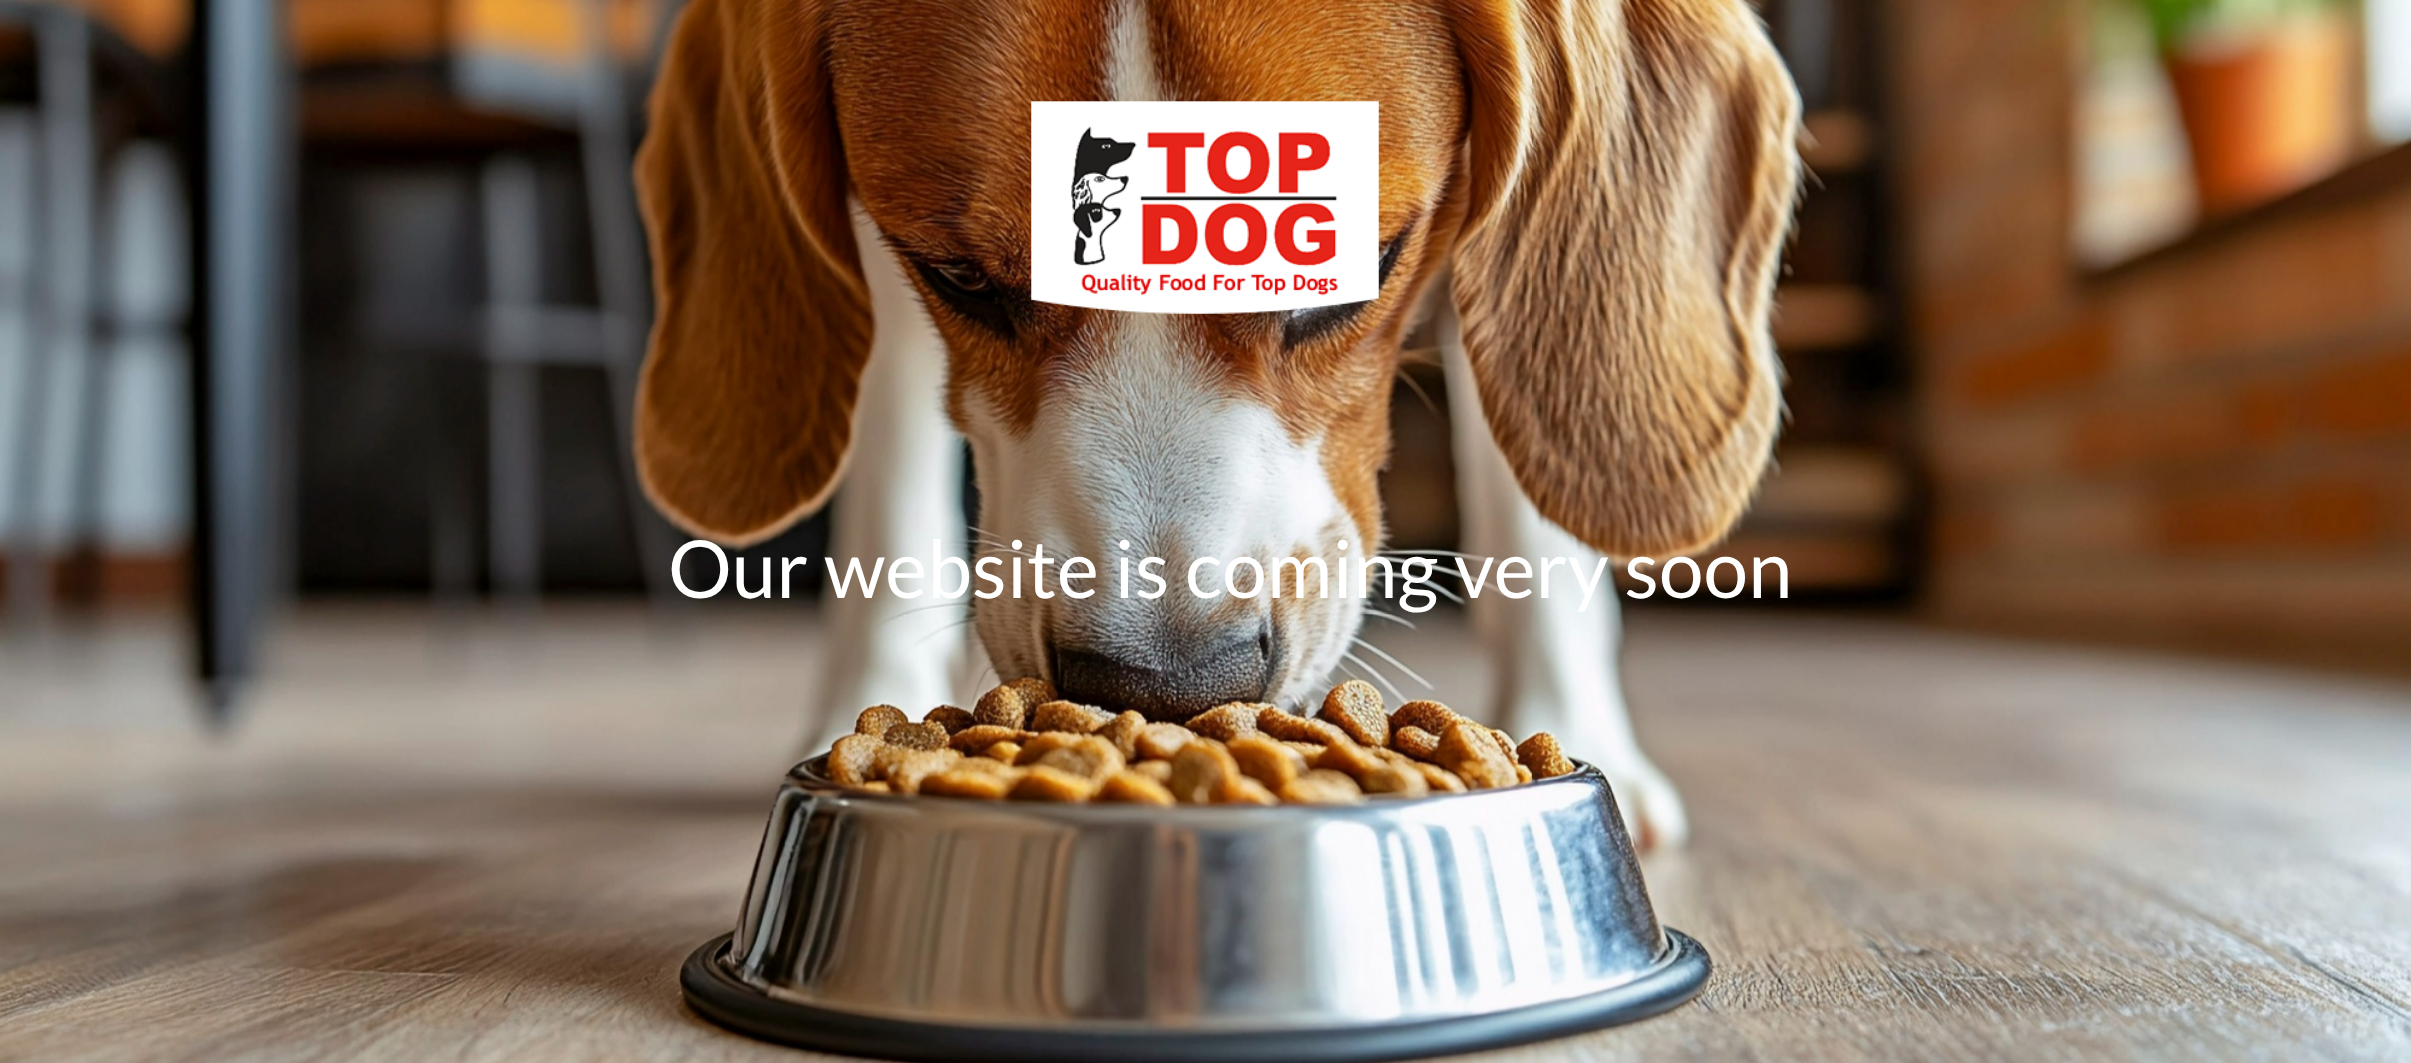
<svg xmlns="http://www.w3.org/2000/svg" width="2411" height="1063" viewBox="0 0 2411 1063">
  <rect width="100%" height="100%" fill="#ffffff"/>
  <image x="0" y="0" width="2411" height="1063" href="img1.png"/>
  <image x="1031" y="101" width="348" height="213" href="img2.png"/>
  <text x="668" y="598" font-family="Lato" font-size="80" fill="#ffffff">Our website is coming very soon</text>
</svg>
